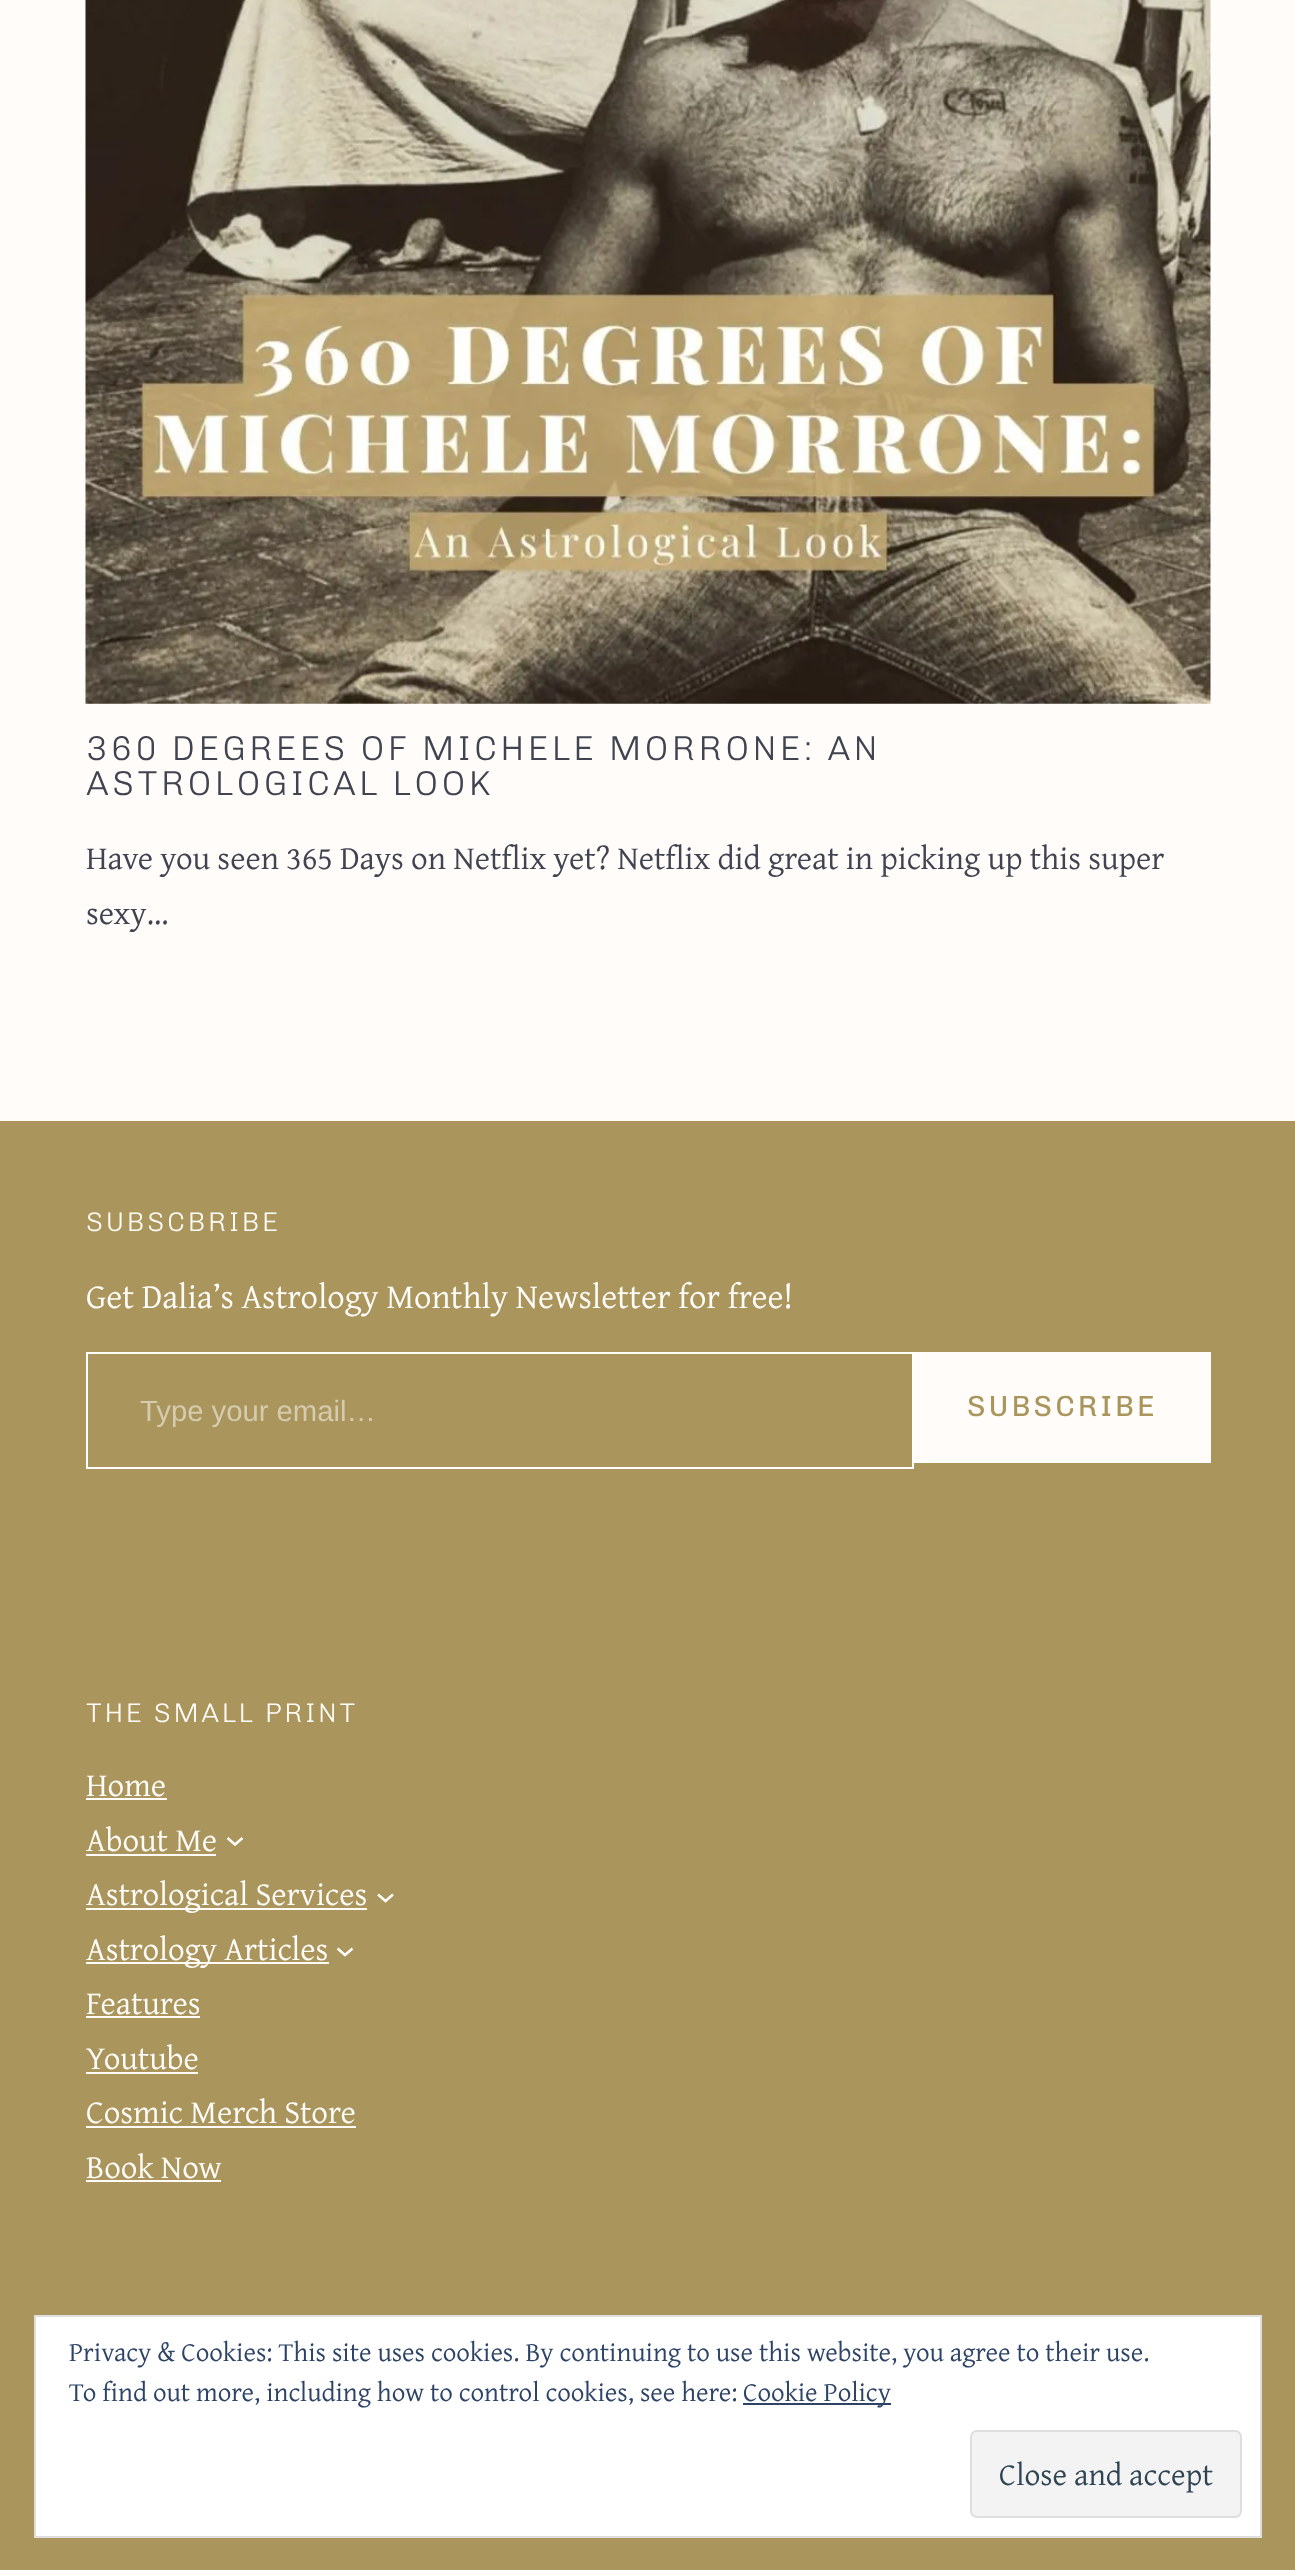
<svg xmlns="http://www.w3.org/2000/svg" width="1295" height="2570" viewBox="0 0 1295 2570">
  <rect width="100%" height="100%" fill="#fffcf9"/>
  <image x="85" y="0" width="1126" height="704" href="img1.png"/>
  <text x="86" y="760" font-family="Chivo" font-size="34.6" font-weight="200" letter-spacing="3.45" fill="#404350">360 DEGREES OF MICHELE MORRONE: AN</text>
  <text x="86" y="795" font-family="Chivo" font-size="34.6" font-weight="200" letter-spacing="3.45" fill="#404350">ASTROLOGICAL LOOK</text>
  <text x="86" y="869" font-family="Gentium Plus" font-size="33.05" fill="#404350">Have you seen 365 Days on Netflix yet? Netflix did great in picking up this super</text>
  <text x="86" y="924" font-family="Gentium Plus" font-size="33.05" fill="#404350">sexy…</text>
  <rect x="0" y="1121" width="1295" height="1449" fill="#aa965c"/>
  <text x="86" y="1231" font-family="Chivo" font-size="27" font-weight="200" letter-spacing="2.75" fill="#fffcf9">SUBSCBRIBE</text>
  <text x="86" y="1308" font-family="Gentium Plus" font-size="34.6" fill="#fffcf9">Get Dalia’s Astrology Monthly Newsletter for free!</text>
  <rect x="87" y="1353" width="826" height="115" fill="none" stroke="#ffffff" stroke-width="2"/>
  <text x="140" y="1421" font-family="Liberation Sans" font-size="29.25" fill="#d5cbae">Type your email…</text>
  <rect x="914" y="1352" width="297" height="111" fill="#fffcf9"/>
  <text x="967" y="1416" font-family="Chivo" font-size="29.25" letter-spacing="3" fill="#aa965c">SUBSCRIBE</text>
  <text x="86" y="1722" font-family="Chivo" font-size="27" font-weight="200" letter-spacing="2.75" fill="#fffcf9">THE SMALL PRINT</text>
  <text x="86" y="1796" font-family="Gentium Plus" font-size="33.05" fill="#fffcf9">Home</text>
  <rect x="86" y="1798" width="81" height="2" fill="#fffcf9"/>
  <text x="86" y="1851" font-family="Gentium Plus" font-size="33.05" fill="#fffcf9">About Me</text>
  <rect x="86" y="1854" width="130" height="2" fill="#fffcf9"/>
  <path d="M227.5 1838L235 1844.5L242.5 1838" fill="none" stroke="#fffcf9" stroke-width="2.5"/>
  <rect x="86" y="1908" width="281" height="2" fill="#fffcf9"/>
  <text x="86" y="1905" font-family="Gentium Plus" font-size="33.05" fill="#fffcf9">Astrological Services</text>
  <path d="M378 1894.5L385.5 1901L393 1894.5" fill="none" stroke="#fffcf9" stroke-width="2.5"/>
  <rect x="86" y="1962" width="243" height="2" fill="#fffcf9"/>
  <text x="86" y="1960" font-family="Gentium Plus" font-size="33.05" fill="#fffcf9">Astrology Articles</text>
  <path d="M337.5 1948.5L345 1955L352.5 1948.5" fill="none" stroke="#fffcf9" stroke-width="2.5"/>
  <text x="86" y="2014" font-family="Gentium Plus" font-size="33.05" fill="#fffcf9">Features</text>
  <rect x="86" y="2016" width="114" height="2" fill="#fffcf9"/>
  <text x="86" y="2069" font-family="Gentium Plus" font-size="33.05" fill="#fffcf9">Youtube</text>
  <rect x="86" y="2072" width="112" height="2" fill="#fffcf9"/>
  <text x="86" y="2123" font-family="Gentium Plus" font-size="33.05" fill="#fffcf9">Cosmic Merch Store</text>
  <rect x="86" y="2126" width="270" height="2" fill="#fffcf9"/>
  <text x="86" y="2178" font-family="Gentium Plus" font-size="33.05" fill="#fffcf9">Book Now</text>
  <rect x="86" y="2180" width="135" height="2" fill="#fffcf9"/>
  <rect x="35" y="2316" width="1226" height="221" fill="#ffffff" stroke="#dedede" stroke-width="2"/>
  <text x="69" y="2361" font-family="Gentium Plus" font-size="27" fill="#2e4467">Privacy &amp; Cookies: This site uses cookies. By continuing to use this website, you agree to their use.</text>
  <text x="69" y="2401" font-family="Gentium Plus" font-size="27" fill="#2e4467">To find out more, including how to control cookies, see here:</text>
  <rect x="743" y="2403" width="148" height="2" fill="#2e4467"/>
  <text x="743" y="2401" font-family="Gentium Plus" font-size="27" fill="#2e4467">Cookie Policy</text>
  <rect x="971" y="2431" width="270" height="86" rx="6" fill="#f3f3f3" stroke="#dedede" stroke-width="2"/>
  <text x="999" y="2485" font-family="Gentium Plus" font-size="31.5" fill="#2e4453">Close and accept</text>
</svg>
